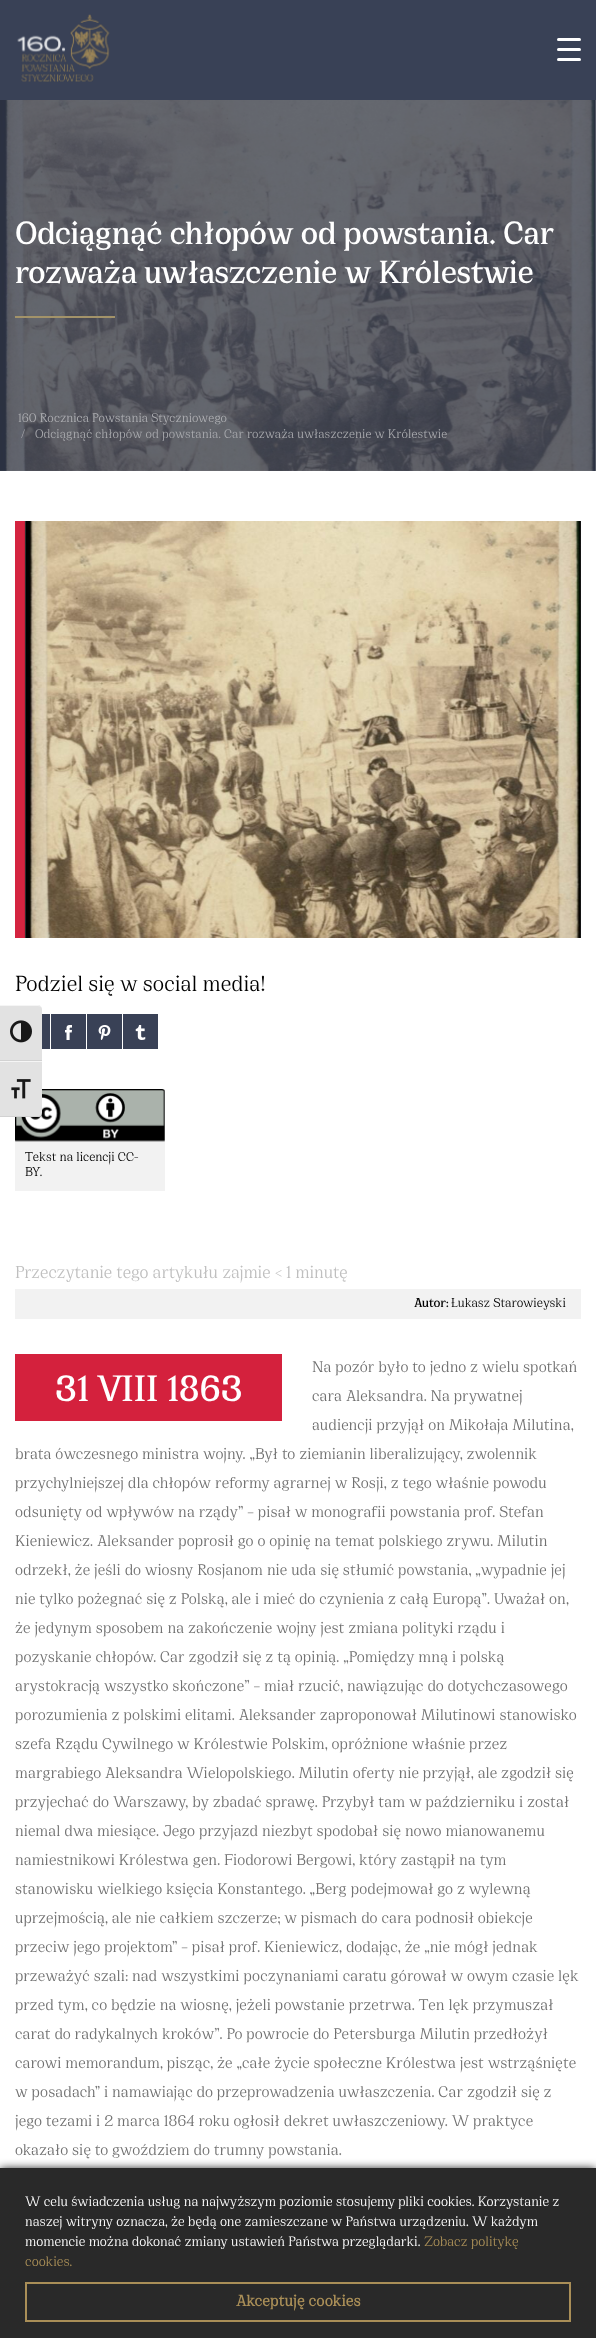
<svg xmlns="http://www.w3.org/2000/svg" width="596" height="2338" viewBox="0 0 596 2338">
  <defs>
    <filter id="blur1" x="-50%" y="-200%" width="200%" height="500%"><feGaussianBlur stdDeviation="5"/></filter>
  </defs>
  <rect width="100%" height="100%" fill="#ffffff"/>
  <rect x="0" y="0" width="596" height="100" fill="#394156"/>
  <image x="17" y="14" width="93" height="68" href="img1.png"/>
  <rect x="557" y="48" width="24" height="3" rx="1.5" fill="#ffffff"/>
  <rect x="557" y="38" width="24" height="3" rx="1.5" fill="#ffffff"/>
  <rect x="557" y="58" width="24" height="3" rx="1.5" fill="#ffffff"/>
  <image x="0" y="100" width="596" height="371" href="img2.png"/>
  <text x="15" y="244" font-family="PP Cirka" font-size="35" font-weight="bold" fill="#ffffff">Odciągnąć chłopów od powstania. Car</text>
  <text x="15" y="283" font-family="PP Cirka" font-size="35" font-weight="bold" fill="#ffffff">rozważa uwłaszczenie w Królestwie</text>
  <rect x="15" y="316" width="100" height="2" fill="#a39369"/>
  <text x="18" y="422" font-family="PP Cirka" font-size="13.6" letter-spacing="0.1" fill="#adaeb2">160 Rocznica Powstania Styczniowego</text>
  <text x="21" y="438" font-family="PP Cirka" font-size="13.6" letter-spacing="0.1" fill="#adaeb2">/</text>
  <text x="35" y="438" font-family="PP Cirka" font-size="13.6" letter-spacing="0.1" fill="#a7a8ac">Odciągnąć chłopów od powstania. Car rozważa uwłaszczenie w Królestwie</text>
  <rect x="15" y="521" width="10" height="417" fill="#d42440"/>
  <image x="24" y="521" width="557" height="417" href="img3.png"/>
  <text x="15" y="991" font-family="PP Cirka" font-size="24" fill="#000000">Podziel się w social media!</text>
  <rect x="42" y="1014" width="8" height="35" fill="#394156"/>
  <rect x="51" y="1014" width="35" height="35" fill="#394156"/>
  <image x="65" y="1025" width="7" height="15" href="img4.png"/>
  <rect x="87" y="1014" width="35" height="35" fill="#394156"/>
  <image x="98" y="1025" width="13" height="15" href="img5.png"/>
  <rect x="123" y="1014" width="35" height="35" fill="#394156"/>
  <image x="135" y="1025" width="11" height="15" href="img6.png"/>
  <rect x="15" y="1141" width="150" height="50" fill="#f2f2f2"/>
  <image x="15" y="1089" width="150" height="53" href="img7.png"/>
  <text x="25" y="1161" font-family="PP Cirka" font-size="14" fill="#000000">Tekst na licencji CC-</text>
  <text x="25" y="1176" font-family="PP Cirka" font-size="14" fill="#000000">BY.</text>
  <text x="15" y="1278" font-family="PP Cirka" font-size="19" fill="#bfbfbf">Przeczytanie tego artykułu zajmie &lt; 1 minutę</text>
  <rect x="15" y="1289" width="566" height="30" fill="#f2f2f2"/>
  <text x="414" y="1307" font-family="PP Cirka" font-size="14" font-weight="bold" fill="#000000">Autor:</text>
  <text x="451" y="1307" font-family="PP Cirka" font-size="14" fill="#000000">Łukasz Starowieyski</text>
  <text x="312" y="1372" font-family="PP Cirka" font-size="17" letter-spacing="0.1" fill="#707070">Na pozór było to jedno z wielu spotkań</text>
  <text x="312" y="1401" font-family="PP Cirka" font-size="17" letter-spacing="0.1" fill="#707070">cara Aleksandra. Na prywatnej</text>
  <text x="312" y="1430" font-family="PP Cirka" font-size="17" letter-spacing="0.1" fill="#707070">audiencji przyjął on Mikołaja Milutina,</text>
  <text x="15" y="1459" font-family="PP Cirka" font-size="17" letter-spacing="0.1" fill="#707070">brata ówczesnego ministra wojny. „Był to ziemianin liberalizujący, zwolennik</text>
  <text x="15" y="1488" font-family="PP Cirka" font-size="17" letter-spacing="0.1" fill="#707070">przychylniejszej dla chłopów reformy agrarnej w Rosji, z tego właśnie powodu</text>
  <text x="15" y="1517" font-family="PP Cirka" font-size="17" letter-spacing="0.1" fill="#707070">odsunięty od wpływów na rządy” – pisał w monografii powstania prof. Stefan</text>
  <text x="15" y="1546" font-family="PP Cirka" font-size="17" letter-spacing="0.1" fill="#707070">Kieniewicz. Aleksander poprosił go o opinię na temat polskiego zrywu. Milutin</text>
  <text x="15" y="1575" font-family="PP Cirka" font-size="17" letter-spacing="0.1" fill="#707070">odrzekł, że jeśli do wiosny Rosjanom nie uda się stłumić powstania, „wypadnie jej</text>
  <text x="15" y="1604" font-family="PP Cirka" font-size="17" letter-spacing="0.1" fill="#707070">nie tylko pożegnać się z Polską, ale i mieć do czynienia z całą Europą”. Uważał on,</text>
  <text x="15" y="1633" font-family="PP Cirka" font-size="17" letter-spacing="0.1" fill="#707070">że jedynym sposobem na zakończenie wojny jest zmiana polityki rządu i</text>
  <text x="15" y="1662" font-family="PP Cirka" font-size="17" letter-spacing="0.1" fill="#707070">pozyskanie chłopów. Car zgodził się z tą opinią. „Pomiędzy mną i polską</text>
  <text x="15" y="1691" font-family="PP Cirka" font-size="17" letter-spacing="0.1" fill="#707070">arystokracją wszystko skończone” – miał rzucić, nawiązując do dotychczasowego</text>
  <text x="15" y="1720" font-family="PP Cirka" font-size="17" letter-spacing="0.1" fill="#707070">porozumienia z polskimi elitami. Aleksander zaproponował Milutinowi stanowisko</text>
  <text x="15" y="1749" font-family="PP Cirka" font-size="17" letter-spacing="0.1" fill="#707070">szefa Rządu Cywilnego w Królestwie Polskim, opróżnione właśnie przez</text>
  <text x="15" y="1778" font-family="PP Cirka" font-size="17" letter-spacing="0.1" fill="#707070">margrabiego Aleksandra Wielopolskiego. Milutin oferty nie przyjął, ale zgodził się</text>
  <text x="15" y="1807" font-family="PP Cirka" font-size="17" letter-spacing="0.1" fill="#707070">przyjechać do Warszawy, by zbadać sprawę. Przybył tam w październiku i został</text>
  <text x="15" y="1836" font-family="PP Cirka" font-size="17" letter-spacing="0.1" fill="#707070">niemal dwa miesiące. Jego przyjazd niezbyt spodobał się nowo mianowanemu</text>
  <text x="15" y="1865" font-family="PP Cirka" font-size="17" letter-spacing="0.1" fill="#707070">namiestnikowi Królestwa gen. Fiodorowi Bergowi, który zastąpił na tym</text>
  <text x="15" y="1894" font-family="PP Cirka" font-size="17" letter-spacing="0.1" fill="#707070">stanowisku wielkiego księcia Konstantego. „Berg podejmował go z wylewną</text>
  <text x="15" y="1923" font-family="PP Cirka" font-size="17" letter-spacing="0.1" fill="#707070">uprzejmością, ale nie całkiem szczerze; w pismach do cara podnosił obiekcje</text>
  <text x="15" y="1952" font-family="PP Cirka" font-size="17" letter-spacing="0.1" fill="#707070">przeciw jego projektom” – pisał prof. Kieniewicz, dodając, że „nie mógł jednak</text>
  <text x="15" y="1981" font-family="PP Cirka" font-size="17" letter-spacing="0.1" fill="#707070">przeważyć szali: nad wszystkimi poczynaniami caratu górował w owym czasie lęk</text>
  <text x="15" y="2010" font-family="PP Cirka" font-size="17" letter-spacing="0.1" fill="#707070">przed tym, co będzie na wiosnę, jeżeli powstanie przetrwa. Ten lęk przymuszał</text>
  <text x="15" y="2039" font-family="PP Cirka" font-size="17" letter-spacing="0.1" fill="#707070">carat do radykalnych kroków”. Po powrocie do Petersburga Milutin przedłożył</text>
  <text x="15" y="2068" font-family="PP Cirka" font-size="17" letter-spacing="0.1" fill="#707070">carowi memorandum, pisząc, że „całe życie społeczne Królestwa jest wstrząśnięte</text>
  <text x="15" y="2097" font-family="PP Cirka" font-size="17" letter-spacing="0.1" fill="#707070">w posadach” i namawiając do przeprowadzenia uwłaszczenia. Car zgodził się z</text>
  <text x="15" y="2126" font-family="PP Cirka" font-size="17" letter-spacing="0.1" fill="#707070">jego tezami i 2 marca 1864 roku ogłosił dekret uwłaszczeniowy. W praktyce</text>
  <text x="15" y="2155" font-family="PP Cirka" font-size="17" letter-spacing="0.1" fill="#707070">okazało się to gwoździem do trumny powstania.</text>
  <rect x="15" y="1354" width="267" height="67" fill="#d4213d"/>
  <text x="55" y="1401" font-family="PP Cirka" font-size="40" font-weight="bold" fill="#ffffff">31 VIII 1863</text>
  <path d="M0 1005H38C40 1005 42 1007 42 1009V1061H0Z" fill="#e2e2e2"/>
  <path d="M0 1005V1006H38C40 1006 42 1007 42 1009C42 1007 40 1005 38 1005Z" fill="#f5f5f5"/>
  <rect x="0" y="1060" width="42" height="1" fill="#d2d2d2"/>
  <image x="10" y="1020" width="22" height="23" href="img8.png"/>
  <path d="M0 1061H42V1113C42 1115 40 1117 38 1117H0Z" fill="#e2e2e2"/>
  <rect x="0" y="1061" width="42" height="1" fill="#f5f5f5"/>
  <path d="M0 1116V1117H38C40 1117 42 1115 42 1113C42 1115 40 1116 38 1116Z" fill="#d2d2d2"/>
  <image x="11" y="1079" width="20" height="20" href="img9.png"/>
  <rect x="0" y="2169" width="596" height="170" fill="#000000" filter="url(#blur1)"/>
  <rect x="0" y="2168" width="596" height="170" fill="#292929"/>
  <text x="25" y="2206" font-family="PP Cirka" font-size="15" fill="#ffffff">W celu świadczenia usług na najwyższym poziomie stosujemy pliki cookies. Korzystanie z</text>
  <text x="25" y="2226" font-family="PP Cirka" font-size="15" fill="#ffffff">naszej witryny oznacza, że będą one zamieszczane w Państwa urządzeniu. W każdym</text>
  <text x="25" y="2246" font-family="PP Cirka" font-size="15" fill="#ffffff">momencie można dokonać zmiany ustawień Państwa przeglądarki.</text>
  <text x="424" y="2246" font-family="PP Cirka" font-size="15" fill="#a98e57">Zobacz politykę</text>
  <text x="25" y="2266" font-family="PP Cirka" font-size="15" fill="#a98e57">cookies.</text>
  <rect x="26" y="2283" width="544" height="38" fill="none" stroke="#a98e57" stroke-width="2"/>
  <text x="236" y="2306" font-family="'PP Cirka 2'" font-size="17" font-weight="bold" letter-spacing="0.25" fill="#a98e57">Akceptuję cookies</text>
</svg>
